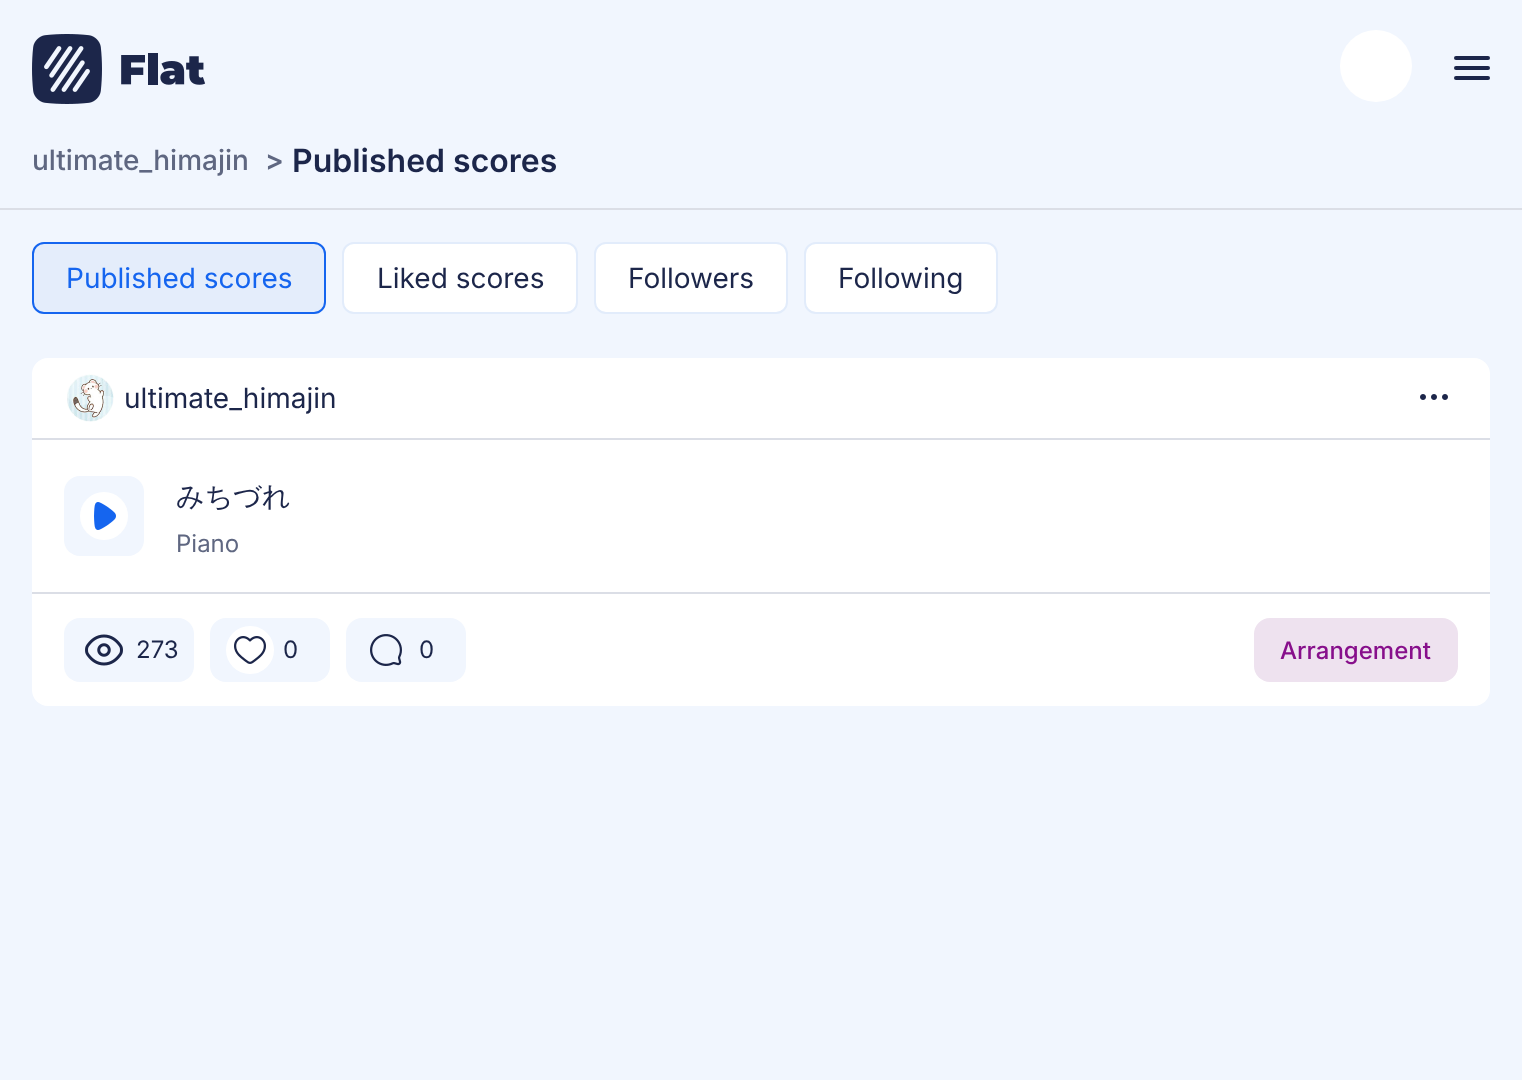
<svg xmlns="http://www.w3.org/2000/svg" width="1522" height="1080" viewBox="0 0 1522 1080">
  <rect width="100%" height="100%" fill="#f1f6fe"/>
  <image x="32" y="34" width="174" height="70" href="img1.png"/>
  <circle cx="1376" cy="66" r="36" fill="#ffffff"/>
  <rect x="1454" y="56" width="36" height="4" rx="2" fill="#1c264a"/>
  <rect x="1454" y="66" width="36" height="4" rx="2" fill="#1c264a"/>
  <rect x="1454" y="76" width="36" height="4" rx="2" fill="#1c264a"/>
  <rect x="0" y="208" width="1522" height="2" fill="#dbdee6"/>
  <text x="32" y="170" font-family="Inter" font-size="28" font-weight="500" fill="#5f6781">ultimate_himajin</text>
  <text x="265" y="170" font-family="Inter" font-size="28" font-weight="600" fill="#5f6781">&gt;</text>
  <text x="292" y="172" font-family="Inter" font-size="32" font-weight="600" fill="#1c264a">Published scores</text>
  <rect x="33" y="243" width="292" height="70" rx="11" fill="#e4edfb" stroke="#1565ef" stroke-width="2"/>
  <text x="66" y="288" font-family="Inter" font-size="28" fill="#1565ef">Published scores</text>
  <rect x="343" y="243" width="234" height="70" rx="11" fill="#ffffff" stroke="#e2ecfb" stroke-width="2"/>
  <text x="377" y="288" font-family="Inter" font-size="28" fill="#1c264a">Liked scores</text>
  <rect x="595" y="243" width="192" height="70" rx="11" fill="#ffffff" stroke="#e2ecfb" stroke-width="2"/>
  <text x="628" y="288" font-family="Inter" font-size="28" fill="#1c264a">Followers</text>
  <rect x="805" y="243" width="192" height="70" rx="11" fill="#ffffff" stroke="#e2ecfb" stroke-width="2"/>
  <text x="838" y="288" font-family="Inter" font-size="28" fill="#1c264a">Following</text>
  <rect x="32" y="358" width="1458" height="348" rx="16" fill="#ffffff"/>
  <rect x="32" y="438" width="1458" height="2" fill="#dbdee6"/>
  <image x="67" y="374" width="47" height="48" href="img2.png"/>
  <text x="124" y="408" font-family="Inter" font-size="28" fill="#1c264a">ultimate_himajin</text>
  <image x="1420" y="394" width="28" height="6" href="img3.png"/>
  <rect x="64" y="476" width="80" height="80" rx="16" fill="#f1f6fe"/>
  <circle cx="104" cy="516" r="24" fill="#ffffff"/>
  <image x="94" y="502" width="22" height="28" href="img4.png"/>
  <text x="176" y="506" font-family="WenQuanYi Zen Hei" font-size="28" font-weight="500" fill="#1c264a">みちづれ</text>
  <text x="176" y="552" font-family="Inter" font-size="24" fill="#5f6781">Piano</text>
  <rect x="32" y="592" width="1458" height="2" fill="#dbdee6"/>
  <rect x="64" y="618" width="130" height="64" rx="16" fill="#f1f6fe"/>
  <image x="85" y="634" width="38" height="32" href="img5.png"/>
  <text x="136" y="658" font-family="Inter" font-size="24" fill="#1c264a">273</text>
  <rect x="210" y="618" width="120" height="64" rx="16" fill="#f1f6fe"/>
  <circle cx="250" cy="650" r="24" fill="#ffffff"/>
  <image x="234" y="636" width="32" height="28" href="img6.png"/>
  <text x="283" y="658" font-family="Inter" font-size="24" fill="#1c264a">0</text>
  <rect x="346" y="618" width="120" height="64" rx="16" fill="#f1f6fe"/>
  <image x="370" y="634" width="32" height="32" href="img7.png"/>
  <text x="419" y="658" font-family="Inter" font-size="24" fill="#1c264a">0</text>
  <rect x="1254" y="618" width="204" height="64" rx="16" fill="#eee2ef"/>
  <text x="1280" y="659" font-family="Inter" font-size="24" font-weight="500" fill="#870f8b">Arrangement</text>
</svg>
